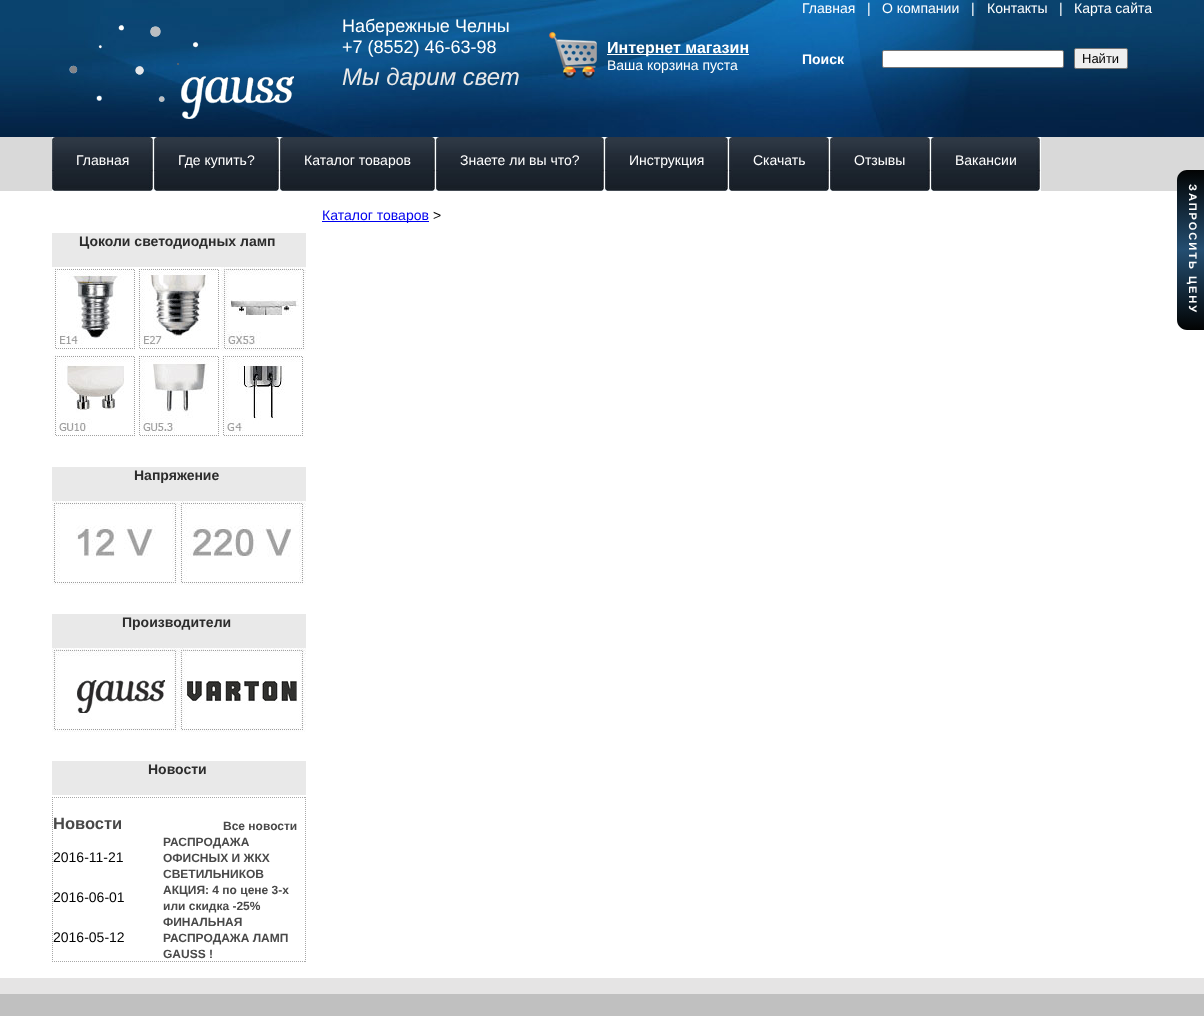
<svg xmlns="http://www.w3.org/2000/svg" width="1204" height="1016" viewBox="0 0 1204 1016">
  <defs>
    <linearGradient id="g1" gradientUnits="userSpaceOnUse" x1="1191" y1="170" x2="1191" y2="330"><stop offset="0" stop-color="#020303"/><stop offset="0.5" stop-color="#244e71"/><stop offset="1" stop-color="#020303"/></linearGradient>
  </defs>
  <rect width="100%" height="100%" fill="#ffffff"/>
  <image x="0" y="0" width="4" height="137" href="img1.png"/>
  <image x="4" y="0" width="1196" height="137" href="img2.png"/>
  <image x="69" y="25" width="225" height="94" href="img3.png"/>
  <text x="802" y="13" font-family="Liberation Sans" font-size="14" fill="#ffffff">Главная</text>
  <text x="867" y="13" font-family="Liberation Sans" font-size="14" fill="#ffffff">|</text>
  <text x="882" y="13" font-family="Liberation Sans" font-size="14" fill="#ffffff">О компании</text>
  <text x="971" y="13" font-family="Liberation Sans" font-size="14" fill="#ffffff">|</text>
  <text x="987" y="13" font-family="Liberation Sans" font-size="14" fill="#ffffff">Контакты</text>
  <text x="1059" y="13" font-family="Liberation Sans" font-size="14" fill="#ffffff">|</text>
  <text x="1074" y="13" font-family="Liberation Sans" font-size="14" fill="#ffffff">Карта сайта</text>
  <text x="342" y="32" font-family="Liberation Sans" font-size="18" fill="#ffffff">Набережные Челны</text>
  <text x="342" y="53" font-family="Liberation Sans" font-size="18" fill="#ffffff">+7 (8552) 46-63-98</text>
  <text x="342" y="85" font-family="Liberation Sans" font-size="24" font-style="italic" fill="#e9e9e9">Мы дарим свет</text>
  <image x="549" y="32" width="48" height="48" href="img4.png"/>
  <rect x="607" y="54" width="142" height="1" fill="#ffffff"/>
  <text x="607" y="53" font-family="Liberation Sans" font-size="16" font-weight="bold" fill="#ffffff">Интернет магазин</text>
  <text x="607" y="70" font-family="Liberation Sans" font-size="14" fill="#ffffff">Ваша корзина пуста</text>
  <text x="802" y="64" font-family="Liberation Sans" font-size="14" font-weight="bold" fill="#ffffff">Поиск</text>
  <rect x="882.5" y="50.5" width="181" height="17" rx="1.5" fill="#ffffff" stroke="#767676"/>
  <rect x="1074.5" y="48.5" width="53" height="20" rx="1.5" fill="#efefef" stroke="#767676"/>
  <text x="1082" y="63" font-family="Liberation Sans" font-size="13" fill="#000000">Найти</text>
  <image x="1200" y="0" width="4" height="137" href="img5.png"/>
  <rect x="0" y="137" width="1200" height="54" fill="#d9d9d9"/>
  <rect x="1200" y="137" width="4" height="33" fill="#d9d9d9"/>
  <image x="52" y="137" width="4" height="54" href="img6.png"/>
  <image x="56" y="137" width="93" height="54" href="img7.png"/>
  <text x="76" y="165" font-family="Liberation Sans" font-size="14" fill="#ffffff">Главная</text>
  <image x="149" y="137" width="5" height="54" href="img8.png"/>
  <image x="154" y="137" width="4" height="54" href="img6.png"/>
  <image x="158" y="137" width="117" height="54" href="img9.png"/>
  <text x="178" y="165" font-family="Liberation Sans" font-size="14" fill="#ffffff">Где купить?</text>
  <image x="275" y="137" width="5" height="54" href="img8.png"/>
  <image x="280" y="137" width="4" height="54" href="img6.png"/>
  <image x="284" y="137" width="147" height="54" href="img10.png"/>
  <text x="304" y="165" font-family="Liberation Sans" font-size="14" fill="#ffffff">Каталог товаров</text>
  <image x="431" y="137" width="5" height="54" href="img8.png"/>
  <image x="436" y="137" width="4" height="54" href="img6.png"/>
  <image x="440" y="137" width="160" height="54" href="img11.png"/>
  <text x="460" y="165" font-family="Liberation Sans" font-size="14" fill="#ffffff">Знаете ли вы что?</text>
  <image x="600" y="137" width="5" height="54" href="img8.png"/>
  <image x="605" y="137" width="4" height="54" href="img6.png"/>
  <image x="609" y="137" width="115" height="54" href="img12.png"/>
  <text x="629" y="165" font-family="Liberation Sans" font-size="14" fill="#ffffff">Инструкция</text>
  <image x="724" y="137" width="5" height="54" href="img8.png"/>
  <image x="729" y="137" width="4" height="54" href="img6.png"/>
  <image x="733" y="137" width="92" height="54" href="img13.png"/>
  <text x="753" y="165" font-family="Liberation Sans" font-size="14" fill="#ffffff">Скачать</text>
  <image x="825" y="137" width="5" height="54" href="img8.png"/>
  <image x="830" y="137" width="4" height="54" href="img6.png"/>
  <image x="834" y="137" width="92" height="54" href="img13.png"/>
  <text x="854" y="165" font-family="Liberation Sans" font-size="14" fill="#ffffff">Отзывы</text>
  <image x="926" y="137" width="5" height="54" href="img8.png"/>
  <image x="931" y="137" width="4" height="54" href="img6.png"/>
  <image x="935" y="137" width="101" height="54" href="img14.png"/>
  <text x="955" y="165" font-family="Liberation Sans" font-size="14" fill="#ffffff">Вакансии</text>
  <image x="1036" y="137" width="5" height="54" href="img8.png"/>
  <rect x="322" y="221" width="107" height="1" fill="#0000ee"/>
  <text x="322" y="220" font-family="Liberation Sans" font-size="14" fill="#0000ee">Каталог товаров</text>
  <text x="433" y="220" font-family="Liberation Sans" font-size="14" fill="#000000">&gt;</text>
  <rect x="52" y="233" width="254" height="34" fill="#e9e9e9"/>
  <text x="79" y="246" font-family="Liberation Sans" font-size="14" font-weight="bold" fill="#2c2c2c">Цоколи светодиодных ламп</text>
  <image x="52" y="268" width="83" height="82" href="img15.png"/>
  <image x="137" y="268" width="84" height="83" href="img16.png"/>
  <image x="221" y="267" width="85" height="84" href="img17.png"/>
  <image x="52" y="355" width="83" height="82" href="img18.png"/>
  <image x="137" y="355" width="84" height="83" href="img19.png"/>
  <image x="221" y="355" width="84" height="83" href="img20.png"/>
  <rect x="52" y="467" width="254" height="34" fill="#e9e9e9"/>
  <text x="134" y="480" font-family="Liberation Sans" font-size="14" font-weight="bold" fill="#2c2c2c">Напряжение</text>
  <image x="52" y="501" width="127" height="84" href="img21.png"/>
  <image x="179" y="501" width="127" height="84" href="img22.png"/>
  <rect x="52" y="614" width="254" height="34" fill="#e9e9e9"/>
  <text x="122" y="627" font-family="Liberation Sans" font-size="14" font-weight="bold" fill="#2c2c2c">Производители</text>
  <image x="52" y="648" width="127" height="84" href="img23.png"/>
  <image x="179" y="648" width="127" height="84" href="img24.png"/>
  <rect x="52" y="761" width="254" height="34" fill="#e9e9e9"/>
  <text x="148" y="774" font-family="Liberation Sans" font-size="14" font-weight="bold" fill="#2c2c2c">Новости</text>
  <path d="M52 797.5H306" fill="none" stroke="#a7a7a7" stroke-dasharray="1 1"/>
  <path d="M305.5 797V962" fill="none" stroke="#a7a7a7" stroke-dasharray="1 1"/>
  <path d="M52 961.5H306" fill="none" stroke="#a7a7a7" stroke-dasharray="1 1"/>
  <path d="M52.5 797V962" fill="none" stroke="#a7a7a7" stroke-dasharray="1 1"/>
  <text x="53" y="829" font-family="Liberation Sans" font-size="16.5" font-weight="bold" fill="#494949">Новости</text>
  <text x="223" y="830" font-family="Liberation Sans" font-size="12" font-weight="bold" fill="#494949">Все новости</text>
  <text x="53" y="862" font-family="Liberation Sans" font-size="14" fill="#000000">2016-11-21</text>
  <text x="163" y="846" font-family="Liberation Sans" font-size="12" font-weight="bold" fill="#494949">РАСПРОДАЖА</text>
  <text x="163" y="862" font-family="Liberation Sans" font-size="12" font-weight="bold" fill="#494949">ОФИСНЫХ И ЖКХ</text>
  <text x="163" y="878" font-family="Liberation Sans" font-size="12" font-weight="bold" fill="#494949">СВЕТИЛЬНИКОВ</text>
  <text x="53" y="902" font-family="Liberation Sans" font-size="14" fill="#000000">2016-06-01</text>
  <text x="163" y="894" font-family="Liberation Sans" font-size="12" font-weight="bold" fill="#494949">АКЦИЯ: 4 по цене 3-х</text>
  <text x="163" y="910" font-family="Liberation Sans" font-size="12" font-weight="bold" fill="#494949">или скидка -25%</text>
  <text x="53" y="942" font-family="Liberation Sans" font-size="14" fill="#000000">2016-05-12</text>
  <text x="163" y="926" font-family="Liberation Sans" font-size="12" font-weight="bold" fill="#494949">ФИНАЛЬНАЯ</text>
  <text x="163" y="942" font-family="Liberation Sans" font-size="12" font-weight="bold" fill="#494949">РАСПРОДАЖА ЛАМП</text>
  <text x="163" y="958" font-family="Liberation Sans" font-size="12" font-weight="bold" fill="#494949">GAUSS !</text>
  <path d="M1187 170H1204V330H1187C1181.5 330 1177 325.5 1177 320V180C1177 174.5 1181.5 170 1187 170Z" fill="url(#g1)"/>
  <text x="1189" y="184" transform="rotate(90 1189 184)" font-family="Liberation Sans" font-size="11" font-weight="bold" letter-spacing="2" fill="#ffffff">ЗАПРОСИТЬ ЦЕНУ</text>
  <rect x="0" y="994" width="1204" height="22" fill="#c0c0c0"/>
  <rect x="0" y="978" width="1204" height="16" fill="#e5e4e4"/>
</svg>
